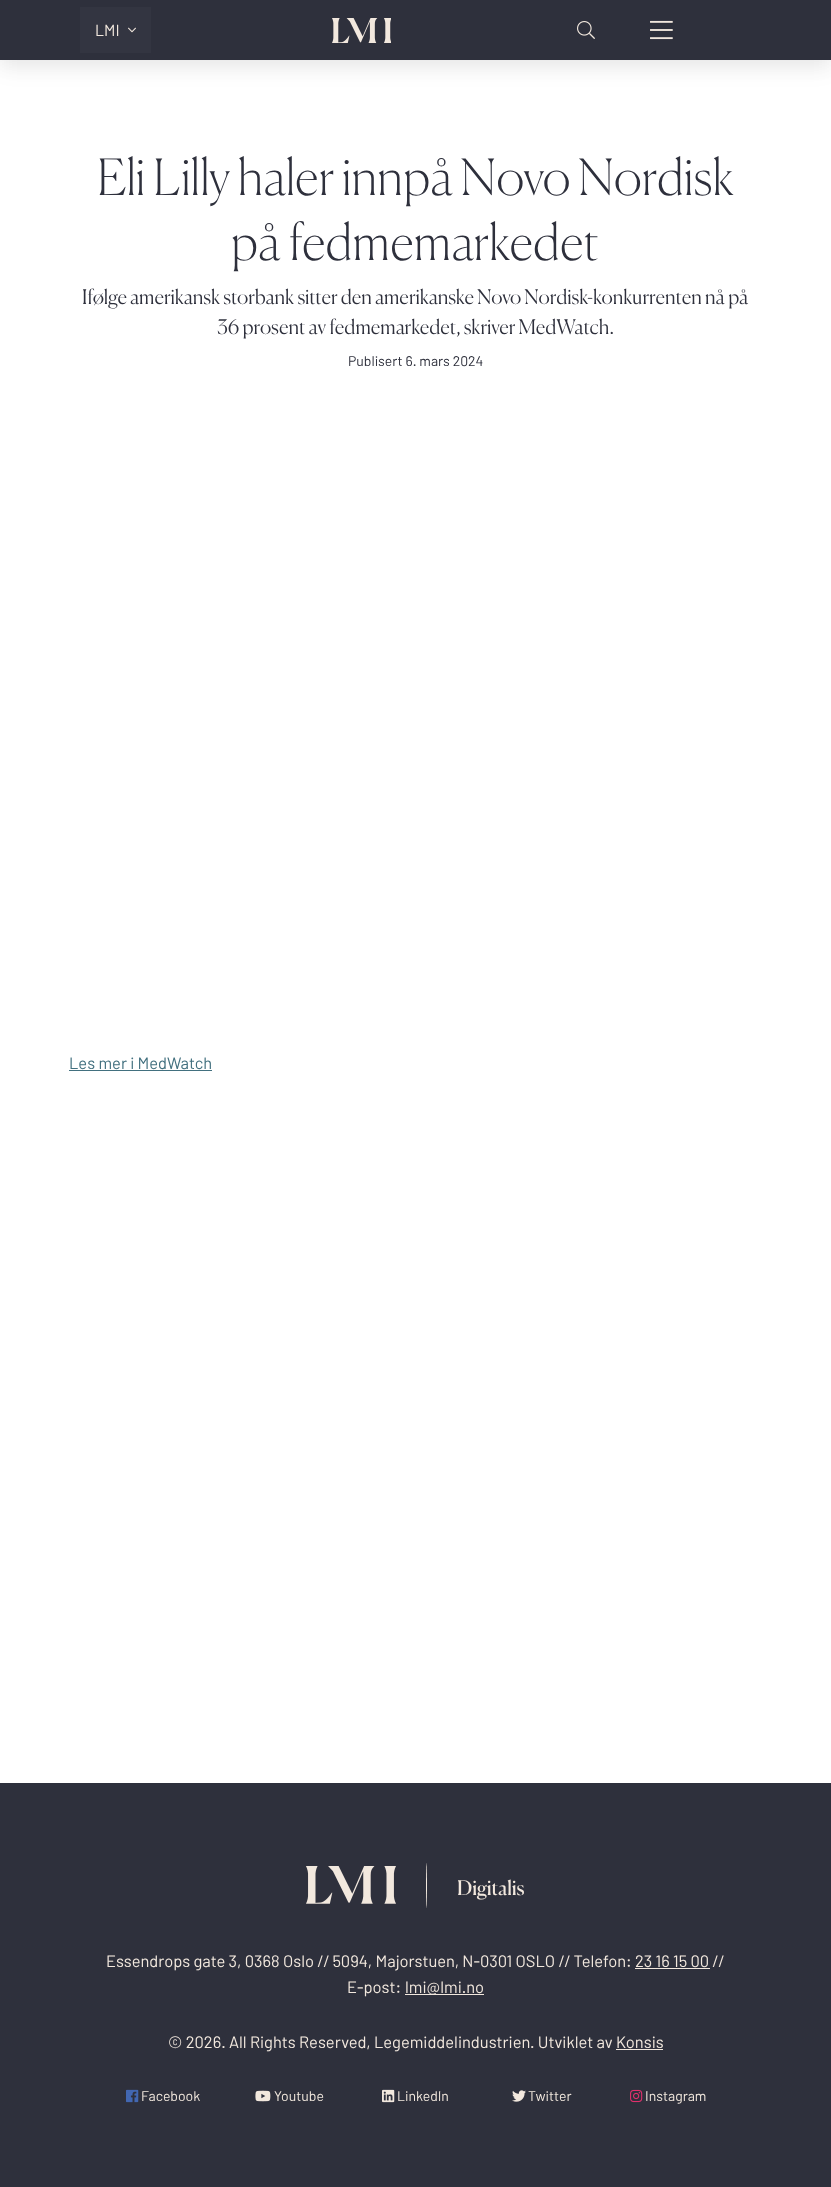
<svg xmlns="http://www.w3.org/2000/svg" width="831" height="2187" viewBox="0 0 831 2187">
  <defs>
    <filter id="blur1" x="-50%" y="-200%" width="200%" height="500%"><feGaussianBlur stdDeviation="10"/></filter>
  </defs>
  <rect width="100%" height="100%" fill="#ffffff"/>
  <rect x="0" y="3" width="831" height="60" fill="#0f0f0f" fill-opacity="0.05" filter="url(#blur1)"/>
  <rect x="0" y="10" width="831" height="60" fill="#0f0f0f" fill-opacity="0.05" filter="url(#blur1)"/>
  <rect x="0" y="0" width="831" height="60" fill="#2e303c"/>
  <rect x="80" y="7" width="71" height="46" fill="#333541"/>
  <text x="95" y="36" font-family="Barlow" font-size="16" fill="#f2e8de">LMI</text>
  <image x="128" y="27" width="8" height="6" href="img1.png"/>
  <image x="332" y="18" width="59" height="25" href="img2.png"/>
  <image x="577" y="21" width="18" height="18" href="img3.png"/>
  <image x="650" y="20" width="23" height="20" href="img4.png"/>
  <text x="97" y="195" font-family="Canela" font-size="50" font-weight="100" fill="#2e303c">Eli Lilly haler innpå Novo Nordisk</text>
  <text x="231" y="260" font-family="Canela" font-size="50" font-weight="100" fill="#2e303c">på fedmemarkedet</text>
  <text x="82" y="304" font-family="Canela" font-size="20" font-weight="300" fill="#2e303c">Ifølge amerikansk storbank sitter den amerikanske Novo Nordisk-konkurrenten nå på</text>
  <text x="217" y="334" font-family="Canela" font-size="20" font-weight="300" fill="#2e303c">36 prosent av fedmemarkedet, skriver MedWatch.</text>
  <text x="348" y="366" font-family="Barlow" font-size="14" fill="#2e303c">Publisert 6. mars 2024</text>
  <text x="69" y="1069" font-family="Barlow" font-size="16.5" fill="#42707f">Les mer i MedWatch</text>
  <rect x="69" y="1070" width="143" height="1" fill="#42707f"/>
  <rect x="0" y="1783" width="831" height="404" fill="#2e303c"/>
  <image x="306" y="1866" width="90" height="38" href="img5.png"/>
  <ellipse cx="426.5" cy="1885.5" rx="0.5" ry="22.5" fill="#f2e8de"/>
  <text x="457" y="1895" font-family="Canela" font-size="20" fill="#f2e8de">Digitalis</text>
  <text x="106" y="1967" font-family="Barlow" font-size="16.5" fill="#f2e8de">Essendrops gate 3, 0368 Oslo // 5094, Majorstuen, N-0301 OSLO // Telefon: 23 16 15 00 //</text>
  <rect x="635" y="1968" width="75" height="1" fill="#f2e8de"/>
  <text x="347" y="1993" font-family="Barlow" font-size="16.5" fill="#f2e8de">E-post:</text>
  <rect x="405" y="1994" width="79" height="1" fill="#f2e8de"/>
  <text x="405" y="1993" font-family="Barlow" font-size="16.5" fill="#f2e8de">lmi@lmi.no</text>
  <text x="168" y="2048" font-family="Barlow" font-size="16.5" fill="#f2e8de">© 2026. All Rights Reserved, Legemiddelindustrien. Utviklet av Konsis</text>
  <rect x="616" y="2049" width="47" height="1" fill="#f2e8de"/>
  <image x="126" y="2089" width="13" height="14" href="img6.png"/>
  <text x="141" y="2101" font-family="Barlow" font-size="14" fill="#f2e8de">Facebook</text>
  <image x="255" y="2090" width="16" height="12" href="img7.png"/>
  <text x="274" y="2101" font-family="Barlow" font-size="14" fill="#f2e8de">Youtube</text>
  <image x="382" y="2089" width="13" height="14" href="img8.png"/>
  <text x="397" y="2101" font-family="Barlow" font-size="14" fill="#f2e8de">LinkedIn</text>
  <image x="512" y="2090" width="14" height="12" href="img9.png"/>
  <text x="528" y="2101" font-family="Barlow" font-size="14" fill="#f2e8de">Twitter</text>
  <image x="630" y="2089" width="13" height="14" href="img10.png"/>
  <text x="645" y="2101" font-family="Barlow" font-size="14" fill="#f2e8de">Instagram</text>
</svg>
